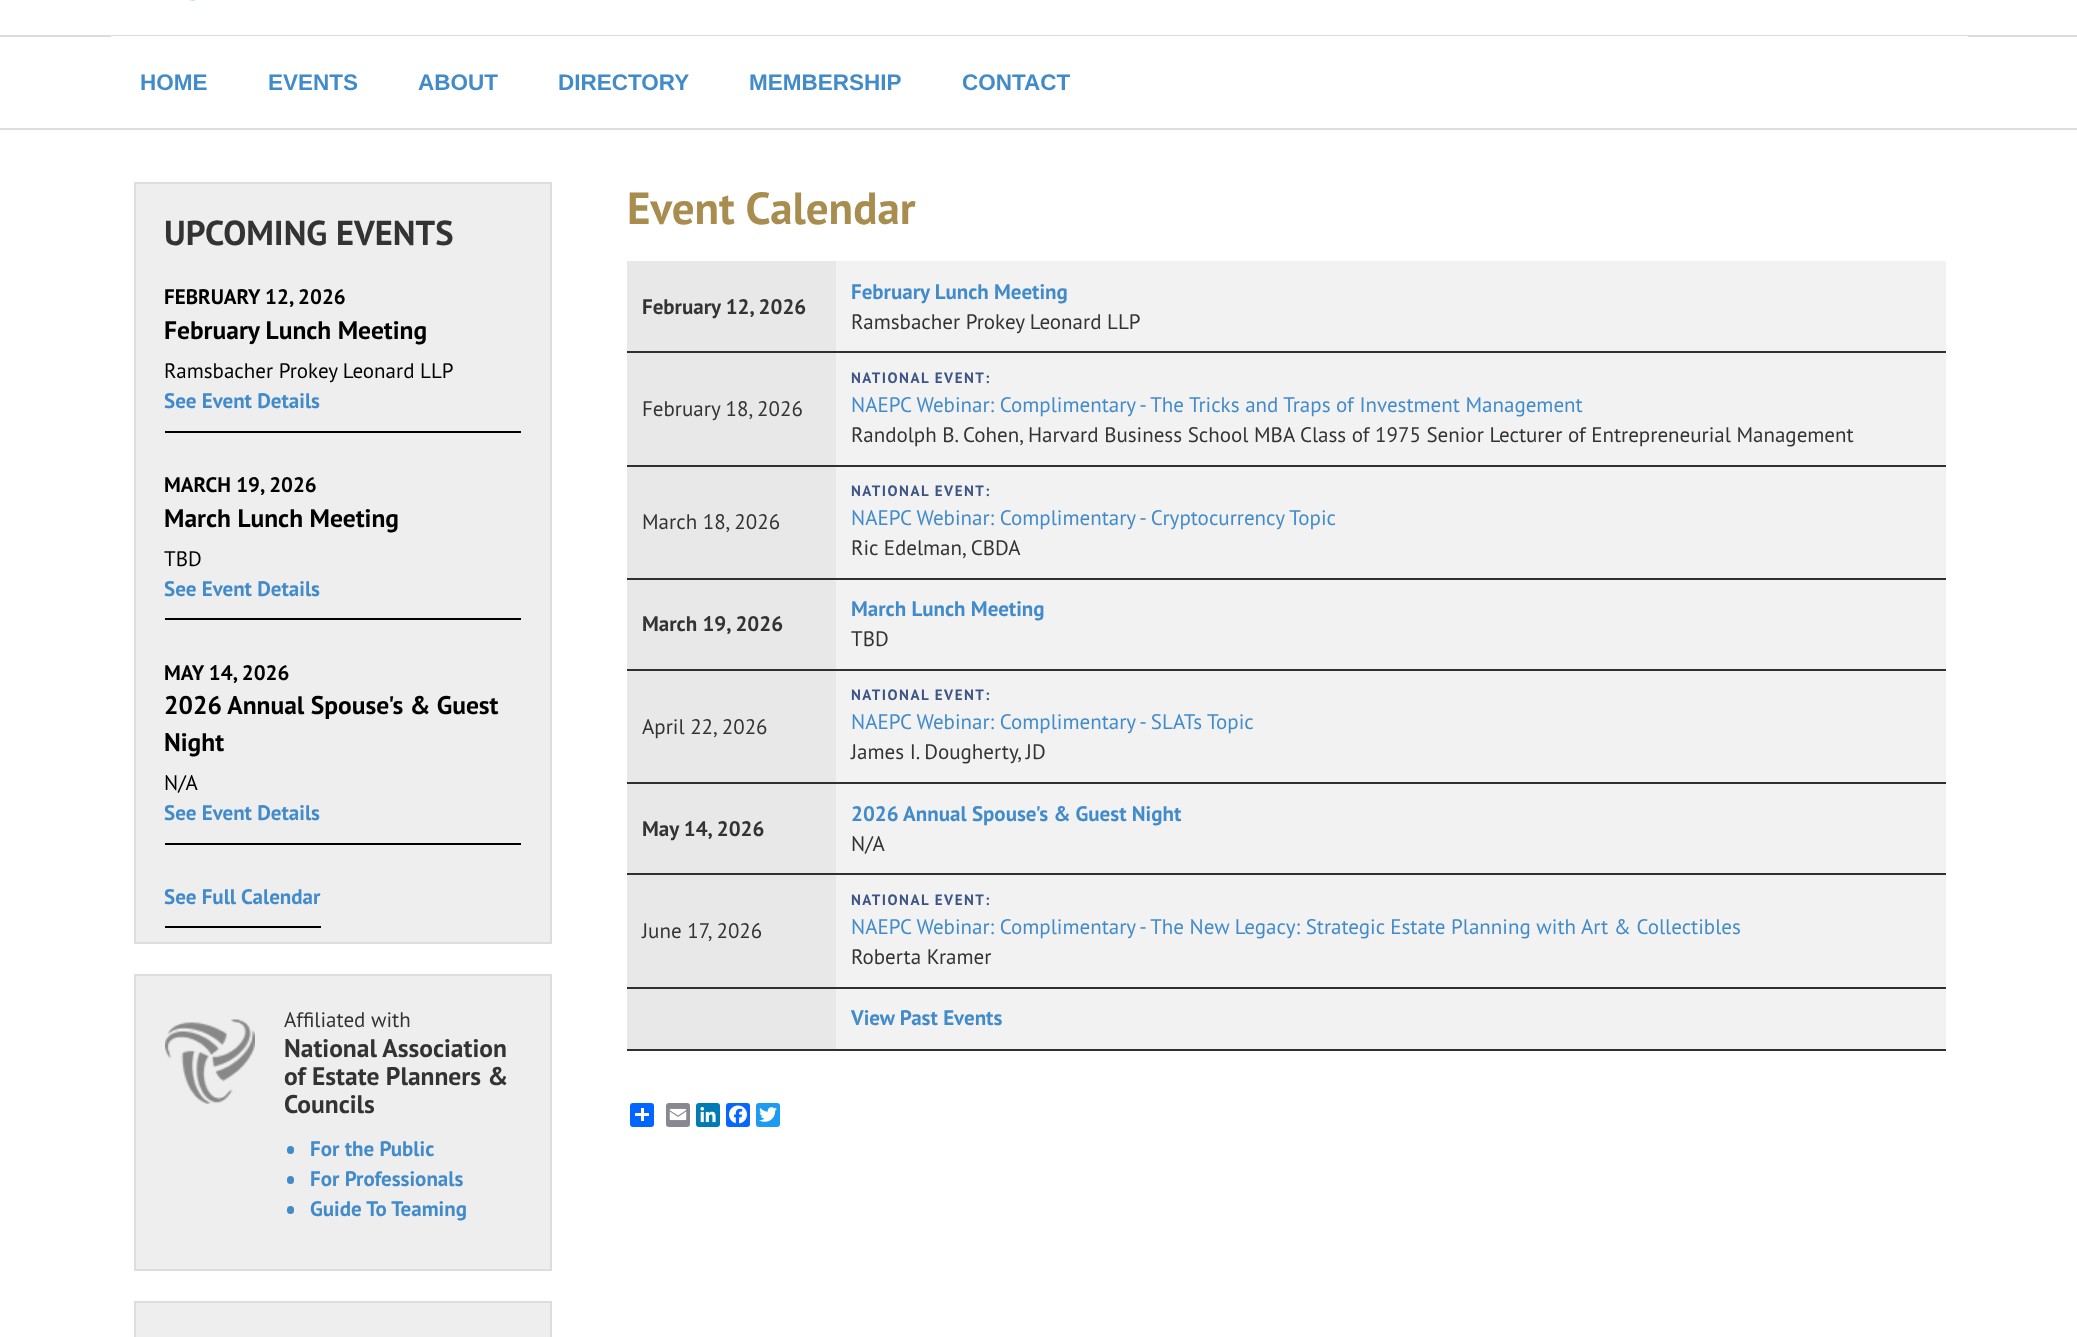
<svg xmlns="http://www.w3.org/2000/svg" width="2077" height="1337" viewBox="0 0 2077 1337">
  <rect width="100%" height="100%" fill="#ffffff"/>
  <rect x="0" y="35" width="2077" height="2" fill="#dddddd"/>
  <image x="188" y="0" width="8" height="1" href="img1.png"/>
  <rect x="0" y="128" width="2077" height="2" fill="#dddddd"/>
  <rect x="111" y="36" width="1857" height="1" fill="#ffffff"/>
  <text x="140" y="90" font-family="Liberation Sans" font-size="22.5" font-weight="bold" fill="#428bca">HOME</text>
  <text x="268" y="90" font-family="Liberation Sans" font-size="22.5" font-weight="bold" fill="#428bca">EVENTS</text>
  <text x="418" y="90" font-family="Liberation Sans" font-size="22.5" font-weight="bold" fill="#428bca">ABOUT</text>
  <text x="558" y="90" font-family="Liberation Sans" font-size="22.5" font-weight="bold" fill="#428bca">DIRECTORY</text>
  <text x="749" y="90" font-family="Liberation Sans" font-size="22.5" font-weight="bold" fill="#428bca">MEMBERSHIP</text>
  <text x="962" y="90" font-family="Liberation Sans" font-size="22.5" font-weight="bold" fill="#428bca">CONTACT</text>
  <rect x="135" y="183" width="416" height="760" fill="#eeeeee" stroke="#dddddd" stroke-width="2"/>
  <text x="164" y="245" font-family="PT Sans" font-size="34.5" font-weight="bold" fill="#333333">UPCOMING EVENTS</text>
  <rect x="165" y="431" width="356" height="2" fill="#000000"/>
  <text x="164" y="304" font-family="PT Sans" font-size="21" font-weight="bold" fill="#000000">FEBRUARY 12, 2026</text>
  <text x="164" y="339" font-family="PT Sans" font-size="25.5" font-weight="bold" fill="#000000">February Lunch Meeting</text>
  <text x="164" y="378" font-family="PT Sans" font-size="21" fill="#000000">Ramsbacher Prokey Leonard LLP</text>
  <text x="164" y="408" font-family="PT Sans" font-size="21" font-weight="bold" fill="#428bca">See Event Details</text>
  <rect x="165" y="618" width="356" height="2" fill="#000000"/>
  <text x="164" y="492" font-family="PT Sans" font-size="21" font-weight="bold" fill="#000000">MARCH 19, 2026</text>
  <text x="164" y="527" font-family="PT Sans" font-size="25.5" font-weight="bold" fill="#000000">March Lunch Meeting</text>
  <text x="164" y="566" font-family="PT Sans" font-size="21" fill="#000000">TBD</text>
  <text x="164" y="596" font-family="PT Sans" font-size="21" font-weight="bold" fill="#428bca">See Event Details</text>
  <rect x="165" y="843" width="356" height="2" fill="#000000"/>
  <text x="164" y="680" font-family="PT Sans" font-size="21" font-weight="bold" fill="#000000">MAY 14, 2026</text>
  <text x="164" y="714" font-family="PT Sans" font-size="25.5" font-weight="bold" fill="#000000">2026 Annual Spouse's &amp; Guest</text>
  <text x="164" y="751" font-family="PT Sans" font-size="25.5" font-weight="bold" fill="#000000">Night</text>
  <text x="164" y="790" font-family="PT Sans" font-size="21" fill="#000000">N/A</text>
  <text x="164" y="820" font-family="PT Sans" font-size="21" font-weight="bold" fill="#428bca">See Event Details</text>
  <text x="164" y="904" font-family="PT Sans" font-size="21" font-weight="bold" fill="#428bca">See Full Calendar</text>
  <rect x="165" y="926" width="156" height="2" fill="#000000"/>
  <rect x="135" y="975" width="416" height="295" fill="#eeeeee" stroke="#dddddd" stroke-width="2"/>
  <image x="165" y="1019" width="90" height="85" href="img2.png"/>
  <text x="284" y="1027" font-family="PT Sans" font-size="21" fill="#333333">Affiliated with</text>
  <text x="284" y="1057" font-family="PT Sans" font-size="25.5" font-weight="bold" fill="#333333">National Association</text>
  <text x="284" y="1085" font-family="PT Sans" font-size="25.5" font-weight="bold" fill="#333333">of Estate Planners &amp;</text>
  <text x="284" y="1113" font-family="PT Sans" font-size="25.5" font-weight="bold" fill="#333333">Councils</text>
  <rect x="287" y="1146" width="7" height="8" rx="3.5" fill="#428bca"/>
  <text x="310" y="1156" font-family="PT Sans" font-size="21" font-weight="bold" fill="#428bca">For the Public</text>
  <rect x="287" y="1176" width="7" height="8" rx="3.5" fill="#428bca"/>
  <text x="310" y="1186" font-family="PT Sans" font-size="21" font-weight="bold" fill="#428bca">For Professionals</text>
  <rect x="287" y="1206" width="7" height="8" rx="3.5" fill="#428bca"/>
  <text x="310" y="1216" font-family="PT Sans" font-size="21" font-weight="bold" fill="#428bca">Guide To Teaming</text>
  <rect x="135" y="1302" width="416" height="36" fill="#eeeeee" stroke="#dddddd" stroke-width="2"/>
  <text x="627" y="224" font-family="PT Sans" font-size="45" font-weight="bold" fill="#a88d4f">Event Calendar</text>
  <rect x="627" y="351" width="1319" height="2" fill="#303030"/>
  <rect x="627" y="261" width="209" height="90" fill="#e8e8e8"/>
  <text x="642" y="314" font-family="PT Sans" font-size="21" font-weight="bold" fill="#333333">February 12, 2026</text>
  <rect x="836" y="261" width="1110" height="90" fill="#f2f2f2"/>
  <text x="851" y="299" font-family="PT Sans" font-size="21" font-weight="bold" fill="#428bca">February Lunch Meeting</text>
  <text x="851" y="329" font-family="PT Sans" font-size="21" fill="#333333">Ramsbacher Prokey Leonard LLP</text>
  <rect x="627" y="465" width="1319" height="2" fill="#303030"/>
  <rect x="627" y="353" width="209" height="112" fill="#e8e8e8"/>
  <text x="642" y="416" font-family="PT Sans" font-size="21" fill="#333333">February 18, 2026</text>
  <rect x="836" y="353" width="1110" height="112" fill="#f2f2f2"/>
  <text x="851" y="383" font-family="PT Sans" font-size="15" font-weight="bold" letter-spacing="1.5" fill="#3d5585">NATIONAL EVENT:</text>
  <text x="851" y="412" font-family="PT Sans" font-size="21" fill="#428bca">NAEPC Webinar: Complimentary - The Tricks and Traps of Investment Management</text>
  <text x="851" y="442" font-family="PT Sans" font-size="21" fill="#333333">Randolph B. Cohen, Harvard Business School MBA Class of 1975 Senior Lecturer of Entrepreneurial Management</text>
  <rect x="627" y="578" width="1319" height="2" fill="#303030"/>
  <rect x="627" y="467" width="209" height="111" fill="#e8e8e8"/>
  <text x="642" y="529" font-family="PT Sans" font-size="21" fill="#333333">March 18, 2026</text>
  <rect x="836" y="467" width="1110" height="111" fill="#f2f2f2"/>
  <text x="851" y="496" font-family="PT Sans" font-size="15" font-weight="bold" letter-spacing="1.5" fill="#3d5585">NATIONAL EVENT:</text>
  <text x="851" y="525" font-family="PT Sans" font-size="21" fill="#428bca">NAEPC Webinar: Complimentary - Cryptocurrency Topic</text>
  <text x="851" y="555" font-family="PT Sans" font-size="21" fill="#333333">Ric Edelman, CBDA</text>
  <rect x="627" y="669" width="1319" height="2" fill="#303030"/>
  <rect x="627" y="580" width="209" height="89" fill="#e8e8e8"/>
  <text x="642" y="631" font-family="PT Sans" font-size="21" font-weight="bold" fill="#333333">March 19, 2026</text>
  <rect x="836" y="580" width="1110" height="89" fill="#f2f2f2"/>
  <text x="851" y="616" font-family="PT Sans" font-size="21" font-weight="bold" fill="#428bca">March Lunch Meeting</text>
  <text x="851" y="646" font-family="PT Sans" font-size="21" fill="#333333">TBD</text>
  <rect x="627" y="782" width="1319" height="2" fill="#303030"/>
  <rect x="627" y="671" width="209" height="111" fill="#e8e8e8"/>
  <text x="642" y="734" font-family="PT Sans" font-size="21" fill="#333333">April 22, 2026</text>
  <rect x="836" y="671" width="1110" height="111" fill="#f2f2f2"/>
  <text x="851" y="700" font-family="PT Sans" font-size="15" font-weight="bold" letter-spacing="1.5" fill="#3d5585">NATIONAL EVENT:</text>
  <text x="851" y="729" font-family="PT Sans" font-size="21" fill="#428bca">NAEPC Webinar: Complimentary - SLATs Topic</text>
  <text x="851" y="759" font-family="PT Sans" font-size="21" fill="#333333">James I. Dougherty, JD</text>
  <rect x="627" y="873" width="1319" height="2" fill="#303030"/>
  <rect x="627" y="784" width="209" height="89" fill="#e8e8e8"/>
  <text x="642" y="836" font-family="PT Sans" font-size="21" font-weight="bold" fill="#333333">May 14, 2026</text>
  <rect x="836" y="784" width="1110" height="89" fill="#f2f2f2"/>
  <text x="851" y="821" font-family="PT Sans" font-size="21" font-weight="bold" fill="#428bca">2026 Annual Spouse's &amp; Guest Night</text>
  <text x="851" y="851" font-family="PT Sans" font-size="21" fill="#333333">N/A</text>
  <rect x="627" y="987" width="1319" height="2" fill="#303030"/>
  <rect x="627" y="875" width="209" height="112" fill="#e8e8e8"/>
  <text x="642" y="938" font-family="PT Sans" font-size="21" fill="#333333">June 17, 2026</text>
  <rect x="836" y="875" width="1110" height="112" fill="#f2f2f2"/>
  <text x="851" y="905" font-family="PT Sans" font-size="15" font-weight="bold" letter-spacing="1.5" fill="#3d5585">NATIONAL EVENT:</text>
  <text x="851" y="934" font-family="PT Sans" font-size="21" fill="#428bca">NAEPC Webinar: Complimentary - The New Legacy: Strategic Estate Planning with Art &amp; Collectibles</text>
  <text x="851" y="964" font-family="PT Sans" font-size="21" fill="#333333">Roberta Kramer</text>
  <rect x="627" y="1049" width="1319" height="2" fill="#303030"/>
  <rect x="627" y="989" width="209" height="60" fill="#e8e8e8"/>
  <rect x="836" y="989" width="1110" height="60" fill="#f2f2f2"/>
  <text x="851" y="1025" font-family="PT Sans" font-size="21" font-weight="bold" fill="#428bca">View Past Events</text>
  <rect x="630" y="1103" width="24" height="24" rx="3" fill="#0166ff"/>
  <rect x="641" y="1108" width="3" height="13" fill="#ffffff"/>
  <rect x="635" y="1113" width="14" height="3" fill="#ffffff"/>
  <rect x="666" y="1103" width="24" height="24" rx="3" fill="#888990"/>
  <image x="669" y="1108" width="18" height="13" href="img3.png"/>
  <rect x="696" y="1103" width="24" height="24" rx="3" fill="#007bb5"/>
  <image x="700" y="1106" width="16" height="17" href="img4.png"/>
  <rect x="726" y="1103" width="24" height="24" rx="3" fill="#0866ff"/>
  <image x="729" y="1105" width="18" height="19" href="img5.png"/>
  <rect x="756" y="1103" width="24" height="24" rx="3" fill="#1d9bf0"/>
  <image x="759" y="1107" width="18" height="15" href="img6.png"/>
</svg>
